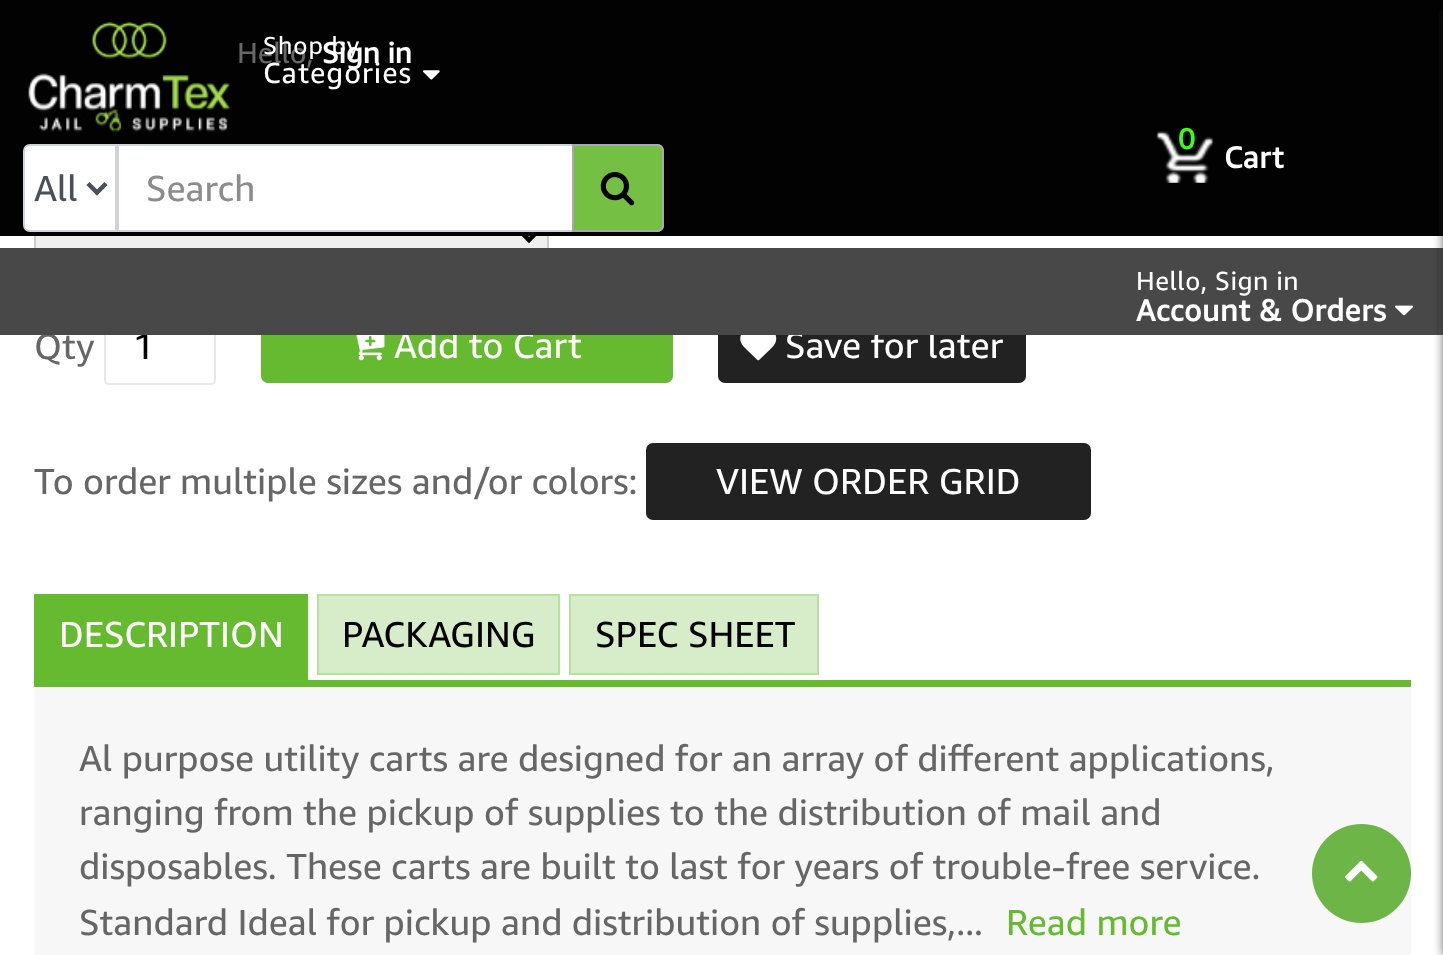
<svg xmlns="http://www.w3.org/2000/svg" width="1443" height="955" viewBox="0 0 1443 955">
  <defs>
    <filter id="blur1" x="-50%" y="-200%" width="200%" height="500%"><feGaussianBlur stdDeviation="5.5"/></filter>
  </defs>
  <rect width="100%" height="100%" fill="#ffffff"/>
  <rect x="36" y="236" width="511" height="12" fill="#efefef"/>
  <rect x="35" y="188" width="513" height="95" fill="none" stroke="#cccccc" stroke-width="2"/>
  <path d="M520 231L529 240L538 231" fill="none" stroke="#000000" stroke-width="4.5"/>
  <rect x="0" y="0" width="1443" height="236" fill="#020202"/>
  <image x="28" y="22" width="203" height="110" href="img1.png"/>
  <text x="237" y="63" font-family="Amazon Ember" font-size="29" fill="#666666">Hello,</text>
  <text x="322" y="63" font-family="Amazon Ember" font-size="29" font-weight="bold" fill="#ffffff">Sign in</text>
  <text x="263" y="54" font-family="Amazon Ember" font-size="24.5" letter-spacing="1" fill="#ffffff">Shop by</text>
  <text x="263" y="83" font-family="Amazon Ember" font-size="29" letter-spacing="1" fill="#ffffff">Categories</text>
  <image x="423" y="70" width="17" height="10" href="img2.png"/>
  <text x="34" y="359" font-family="Amazon Ember" font-size="36" fill="#666666">Qty</text>
  <rect x="105" y="307" width="110" height="77" rx="4" fill="none" stroke="#e8e8e8" stroke-width="2"/>
  <text x="133" y="359" font-family="Amazon Ember" font-size="36" fill="#000000">1</text>
  <rect x="261" y="306" width="412" height="77" rx="7" fill="#65ba2f"/>
  <text x="394" y="358" font-family="Amazon Ember" font-size="36" fill="#ffffff">Add to Cart</text>
  <rect x="718" y="306" width="308" height="77" rx="7" fill="#222222"/>
  <text x="785" y="358" font-family="Amazon Ember" font-size="36" fill="#ffffff">Save for later</text>
  <rect x="0" y="248" width="1443" height="87" fill="#484848"/>
  <rect x="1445" y="5" width="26" height="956" rx="11" fill="#222222" filter="url(#blur1)"/>
  <path d="M30 145H116V231H30C26.5 231 24 228.5 24 225V151C24 147.5 26.5 145 30 145Z" fill="#ffffff" stroke="#ced4da" stroke-width="2"/>
  <path d="M88 183.5L97 192.5L106 183.5" fill="none" stroke="#495057" stroke-width="4.5"/>
  <text x="34" y="201" font-family="Amazon Ember" font-size="36" fill="#495057">All</text>
  <rect x="119" y="146" width="453" height="84" fill="#ffffff"/>
  <path d="M118 145H657C660.5 145 663 147.5 663 151V225C663 228.5 660.5 231 657 231H118Z" fill="none" stroke="#ced4da" stroke-width="2"/>
  <text x="146" y="201" font-family="Amazon Ember" font-size="36" fill="#8c8c8c">Search</text>
  <path d="M573 145H657C660.5 145 663 147.5 663 151V225C663 228.5 660.5 231 657 231H573Z" fill="#75c044" stroke="#a8a9ae" stroke-width="2"/>
  <image x="600" y="172" width="35" height="34" href="img3.png"/>
  <image x="1156" y="131" width="58" height="52" href="img4.png"/>
  <text x="1178" y="149" font-family="Amazon Ember" font-size="29" font-weight="bold" letter-spacing="1" fill="#39ff14">0</text>
  <text x="1224" y="168" font-family="Amazon Ember" font-size="30.25" font-weight="bold" letter-spacing="0.5" fill="#ffffff">Cart</text>
  <text x="1136" y="290" font-family="Amazon Ember" font-size="26" letter-spacing="0.5" fill="#ffffff">Hello, Sign in</text>
  <text x="1136" y="321" font-family="Amazon Ember" font-size="30.25" font-weight="bold" letter-spacing="0.6" fill="#ffffff">Account &amp; Orders</text>
  <image x="1395" y="305" width="18" height="11" href="img5.png"/>
  <image x="356" y="335" width="29" height="26" href="img6.png"/>
  <image x="740" y="335" width="37" height="26" href="img7.png"/>
  <text x="34" y="494" font-family="Amazon Ember" font-size="36" fill="#666666">To order multiple sizes and/or colors:</text>
  <rect x="646" y="443" width="445" height="77" rx="7" fill="#222222"/>
  <text x="716" y="494" font-family="Amazon Ember" font-size="36" fill="#ffffff">VIEW ORDER GRID</text>
  <rect x="34" y="594" width="274" height="86" fill="#65ba2f"/>
  <text x="59" y="647" font-family="Amazon Ember" font-size="36" fill="#ffffff">DESCRIPTION</text>
  <rect x="317" y="594" width="243" height="81" fill="#65ba2f" fill-opacity="0.26"/>
  <rect x="318" y="595" width="241" height="79" fill="none" stroke="#65ba2f" stroke-opacity="0.26" stroke-width="2"/>
  <text x="342" y="647" font-family="Amazon Ember" font-size="36" fill="#000000">PACKAGING</text>
  <rect x="569" y="594" width="250" height="81" fill="#65ba2f" fill-opacity="0.26"/>
  <rect x="570" y="595" width="248" height="79" fill="none" stroke="#65ba2f" stroke-opacity="0.26" stroke-width="2"/>
  <text x="595" y="647" font-family="Amazon Ember" font-size="36" fill="#000000">SPEC SHEET</text>
  <rect x="34" y="687" width="1377" height="268" fill="#f7f7f7"/>
  <rect x="34" y="680" width="1377" height="7" fill="#65ba2f"/>
  <text x="79" y="771" font-family="Amazon Ember" font-size="36" fill="#666666">Al purpose utility carts are designed for an array of different applications,</text>
  <text x="79" y="825" font-family="Amazon Ember" font-size="36" fill="#666666">ranging from the pickup of supplies to the distribution of mail and</text>
  <text x="79" y="879" font-family="Amazon Ember" font-size="36" fill="#666666">disposables. These carts are built to last for years of trouble-free service.</text>
  <text x="79" y="935" font-family="Amazon Ember" font-size="36" fill="#666666">Standard Ideal for pickup and distribution of supplies,...</text>
  <text x="1006" y="935" font-family="Amazon Ember" font-size="36" fill="#65ba2f">Read more</text>
  <circle cx="1361.5" cy="873.5" r="49.5" fill="#6db547"/>
  <image x="1345" y="860" width="33" height="22" href="img8.png"/>
</svg>
